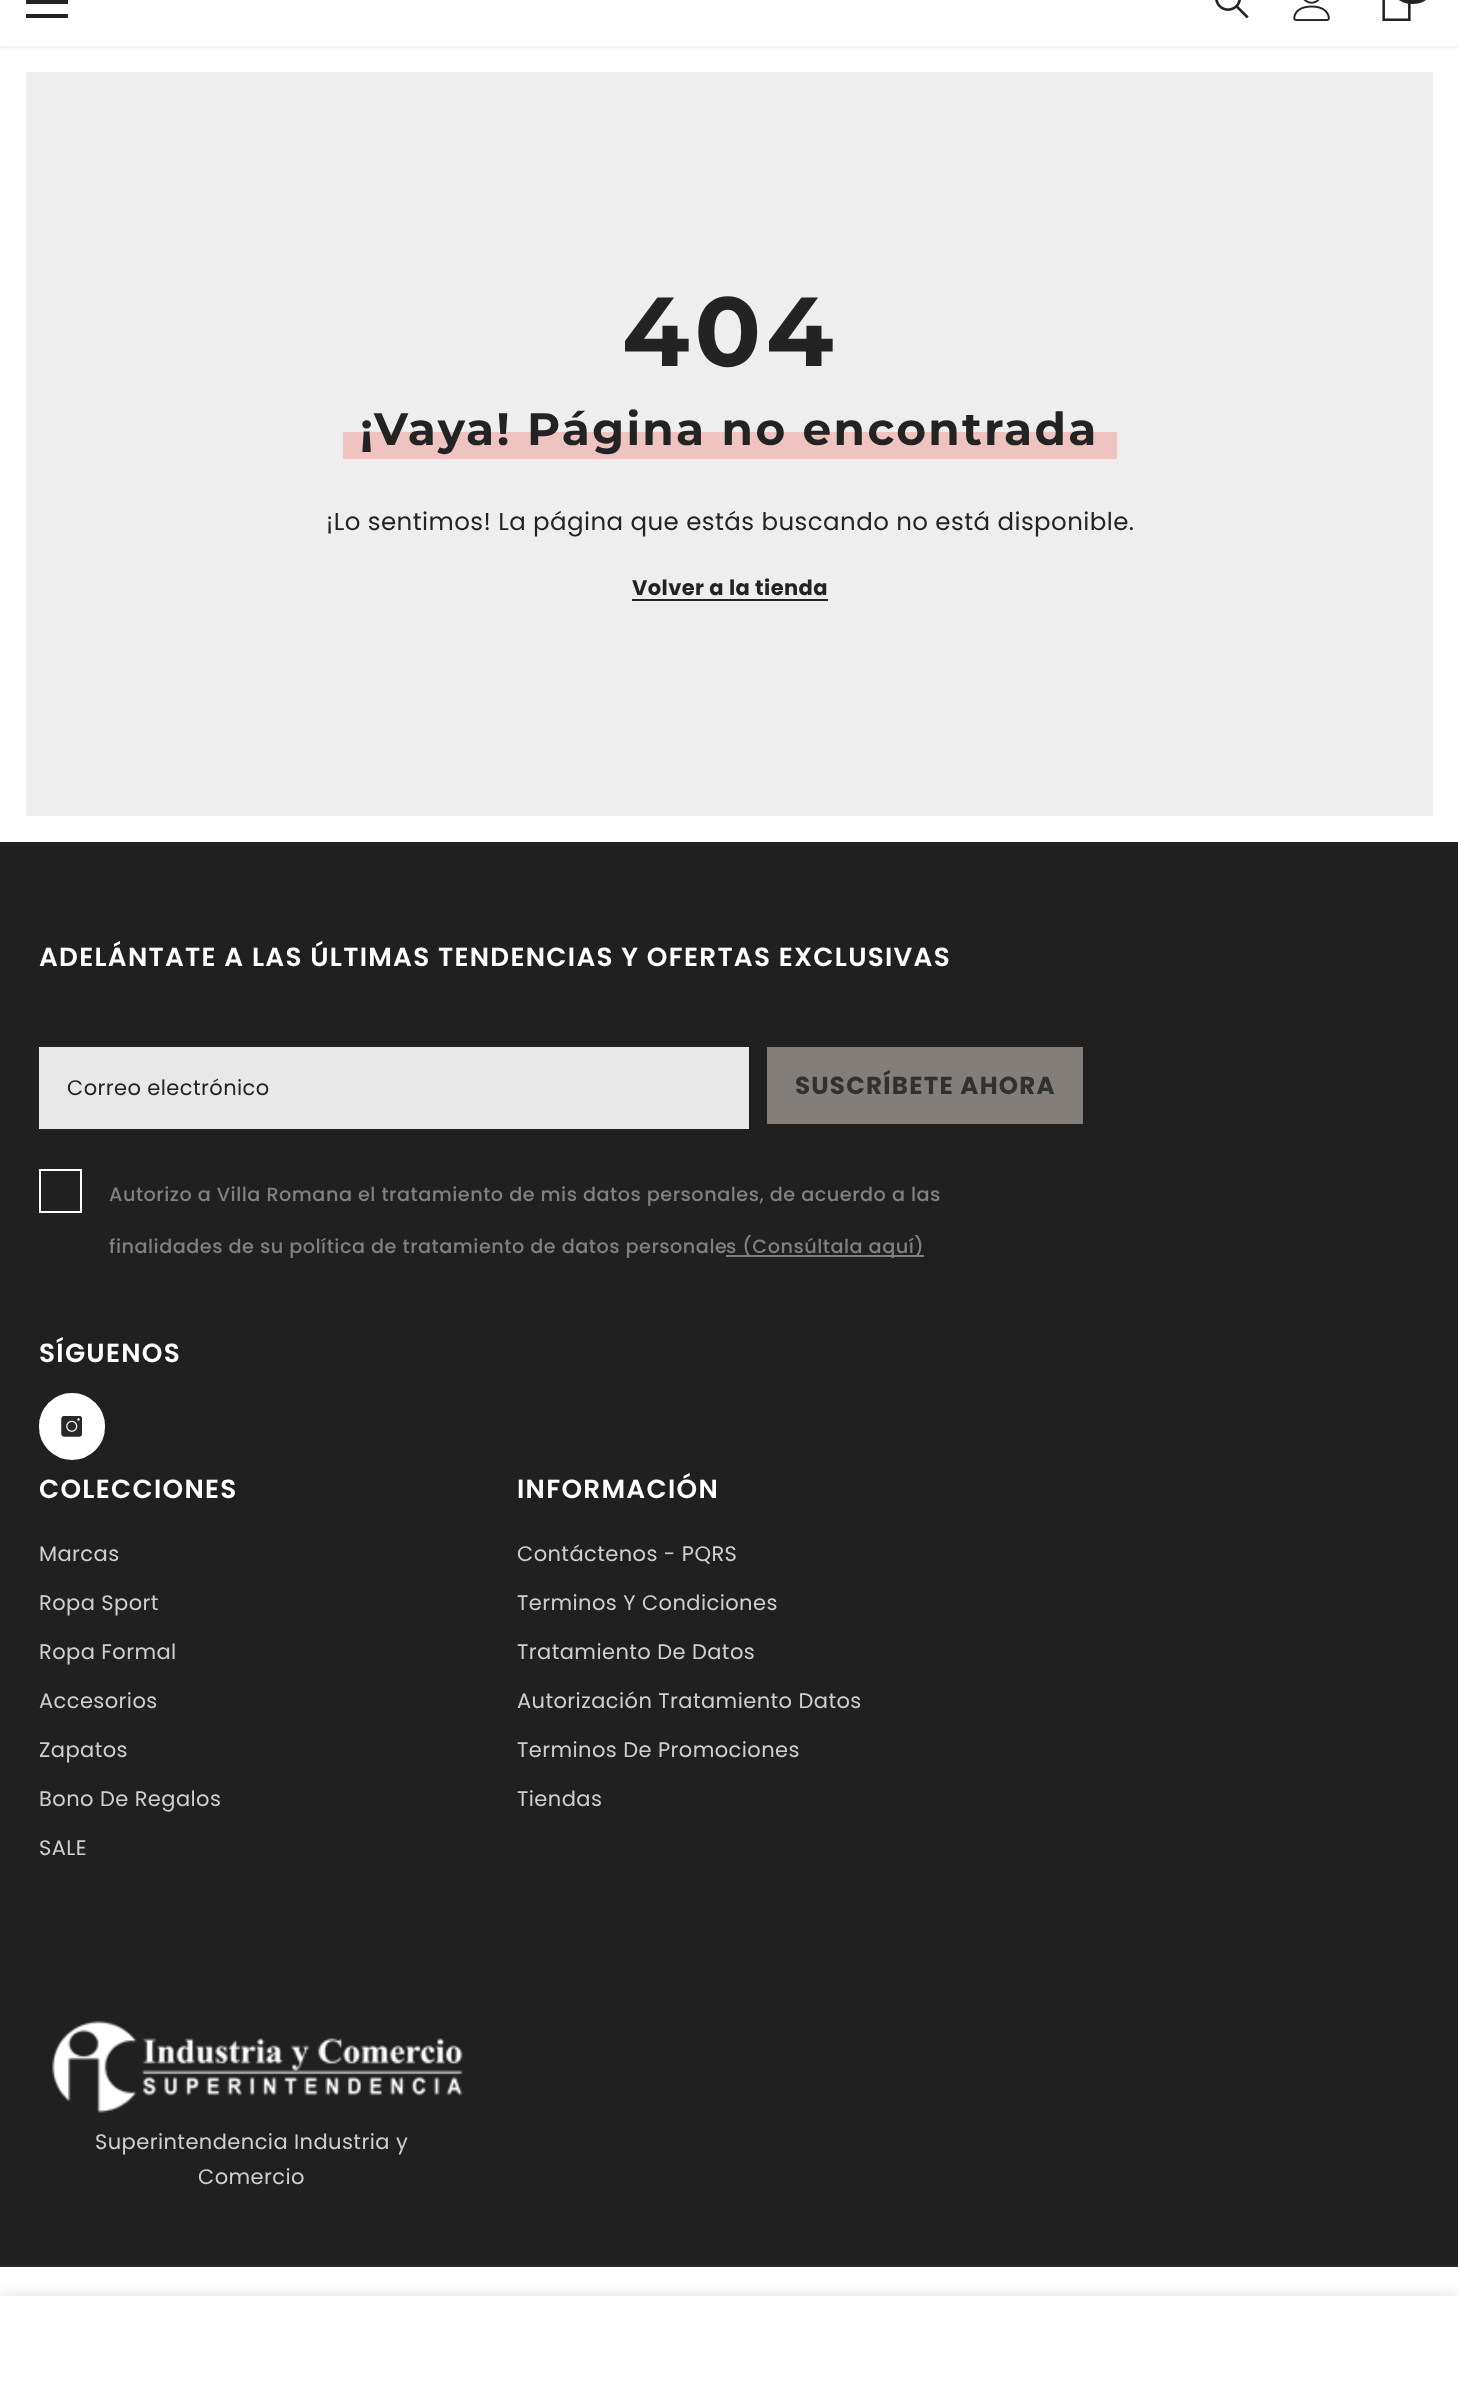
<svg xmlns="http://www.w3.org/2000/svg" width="1458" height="2403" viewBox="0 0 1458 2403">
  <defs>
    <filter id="blur1" x="-50%" y="-200%" width="200%" height="500%"><feGaussianBlur stdDeviation="2.5"/></filter>
    <filter id="blur2" x="-50%" y="-200%" width="200%" height="500%"><feGaussianBlur stdDeviation="8"/></filter>
  </defs>
  <rect width="100%" height="100%" fill="#ffffff"/>
  <rect x="0" y="-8" width="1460" height="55" fill="#000000" fill-opacity="0.1" filter="url(#blur1)"/>
  <rect x="0" y="0" width="1458" height="46" fill="#ffffff"/>
  <rect x="26" y="0" width="42" height="4" fill="#232323"/>
  <rect x="26" y="14" width="42" height="4" fill="#232323"/>
  <image x="1215" y="0" width="34" height="19" href="img1.png"/>
  <image x="1293" y="0" width="37" height="21" href="img2.png"/>
  <image x="1382" y="0" width="29" height="21" href="img3.png"/>
  <rect x="1395" y="-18" width="35" height="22" rx="17.5" fill="#232323"/>
  <rect x="26" y="72" width="1407" height="744" fill="#eeeeee"/>
  <text x="622" y="366" font-family="Montserrat" font-size="98" font-weight="bold" letter-spacing="5" fill="#232323">404</text>
  <rect x="343" y="432" width="774" height="27" fill="#efc3c0"/>
  <text x="360" y="445" font-family="Montserrat" font-size="45.5" font-weight="bold" letter-spacing="2.25" fill="#232323">¡Vaya! Página no encontrada</text>
  <text x="326" y="530" font-family="Poppins" font-size="24.5" letter-spacing="0.42" fill="#232323">¡Lo sentimos! La página que estás buscando no está disponible.</text>
  <text x="632" y="595" font-family="Poppins" font-size="21" font-weight="bold" letter-spacing="0.42" fill="#232323">Volver a la tienda</text>
  <rect x="632" y="599" width="196" height="2" fill="#232323"/>
  <rect x="0" y="842" width="1458" height="1423" fill="#202020"/>
  <text x="39" y="966" font-family="Poppins" font-size="26.25" font-weight="600" letter-spacing="1.3" fill="#ffffff">ADELÁNTATE A LAS ÚLTIMAS TENDENCIAS Y OFERTAS EXCLUSIVAS</text>
  <rect x="39" y="1047" width="710" height="82" fill="#e8e8e8"/>
  <text x="67" y="1095" font-family="Poppins" font-size="21" letter-spacing="0.42" fill="#232323">Correo electrónico</text>
  <rect x="767" y="1047" width="316" height="77" fill="#837e79"/>
  <text x="795" y="1094" font-family="Poppins" font-size="24.5" font-weight="bold" letter-spacing="1.25" fill="#313131">SUSCRÍBETE AHORA</text>
  <rect x="40" y="1170" width="41" height="42" fill="none" stroke="#ffffff" stroke-width="2"/>
  <text x="109" y="1201" font-family="Poppins" font-size="19.25" font-weight="500" letter-spacing="0.5" fill="#808080">Autorizo a Villa Romana el tratamiento de mis datos personales, de acuerdo a las</text>
  <text x="109" y="1253" font-family="Poppins" font-size="19.25" font-weight="500" letter-spacing="0.5" fill="#808080">finalidades de su política de tratamiento de datos personale</text>
  <rect x="726" y="1255" width="198" height="2" fill="#808080"/>
  <text x="726" y="1253" font-family="Poppins" font-size="19.25" font-weight="500" letter-spacing="0.5" fill="#808080">s (Consúltala aquí)</text>
  <text x="39" y="1362" font-family="Poppins" font-size="26.25" font-weight="600" letter-spacing="1.3" fill="#ffffff">SÍGUENOS</text>
  <rect x="40" y="1394" width="64" height="65" rx="32" fill="#ffffff" stroke="#ffffff" stroke-width="2"/>
  <image x="61" y="1416" width="21" height="21" href="img4.png"/>
  <text x="39" y="1498" font-family="Poppins" font-size="26.25" font-weight="600" letter-spacing="1.3" fill="#ffffff">COLECCIONES</text>
  <text x="39" y="1561" font-family="Poppins" font-size="21" letter-spacing="0.42" fill="#cfcfcf">Marcas</text>
  <text x="39" y="1610" font-family="Poppins" font-size="21" letter-spacing="0.42" fill="#cfcfcf">Ropa Sport</text>
  <text x="39" y="1659" font-family="Poppins" font-size="21" letter-spacing="0.42" fill="#cfcfcf">Ropa Formal</text>
  <text x="39" y="1708" font-family="Poppins" font-size="21" letter-spacing="0.42" fill="#cfcfcf">Accesorios</text>
  <text x="39" y="1757" font-family="Poppins" font-size="21" letter-spacing="0.42" fill="#cfcfcf">Zapatos</text>
  <text x="39" y="1806" font-family="Poppins" font-size="21" letter-spacing="0.42" fill="#cfcfcf">Bono De Regalos</text>
  <text x="39" y="1855" font-family="Poppins" font-size="21" letter-spacing="0.42" fill="#cfcfcf">SALE</text>
  <text x="517" y="1498" font-family="Poppins" font-size="26.25" font-weight="600" letter-spacing="1.3" fill="#ffffff">INFORMACIÓN</text>
  <text x="517" y="1561" font-family="Poppins" font-size="21" letter-spacing="0.42" fill="#cfcfcf">Contáctenos - PQRS</text>
  <text x="517" y="1610" font-family="Poppins" font-size="21" letter-spacing="0.42" fill="#cfcfcf">Terminos Y Condiciones</text>
  <text x="517" y="1659" font-family="Poppins" font-size="21" letter-spacing="0.42" fill="#cfcfcf">Tratamiento De Datos</text>
  <text x="517" y="1708" font-family="Poppins" font-size="21" letter-spacing="0.42" fill="#cfcfcf">Autorización Tratamiento Datos</text>
  <text x="517" y="1757" font-family="Poppins" font-size="21" letter-spacing="0.42" fill="#cfcfcf">Terminos De Promociones</text>
  <text x="517" y="1806" font-family="Poppins" font-size="21" letter-spacing="0.42" fill="#cfcfcf">Tiendas</text>
  <image x="52" y="2020" width="411" height="93" href="img5.png"/>
  <text x="95" y="2149" font-family="Poppins" font-size="21" letter-spacing="0.42" fill="#cfcfcf">Superintendencia Industria y</text>
  <text x="198" y="2184" font-family="Poppins" font-size="21" letter-spacing="0.42" fill="#cfcfcf">Comercio</text>
  <rect x="0" y="2265" width="1458" height="2" fill="#282828"/>
  <rect x="0" y="2296" width="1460" height="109" fill="#000000" fill-opacity="0.12" filter="url(#blur2)"/>
  <rect x="0" y="2296" width="1458" height="107" fill="#ffffff"/>
</svg>
